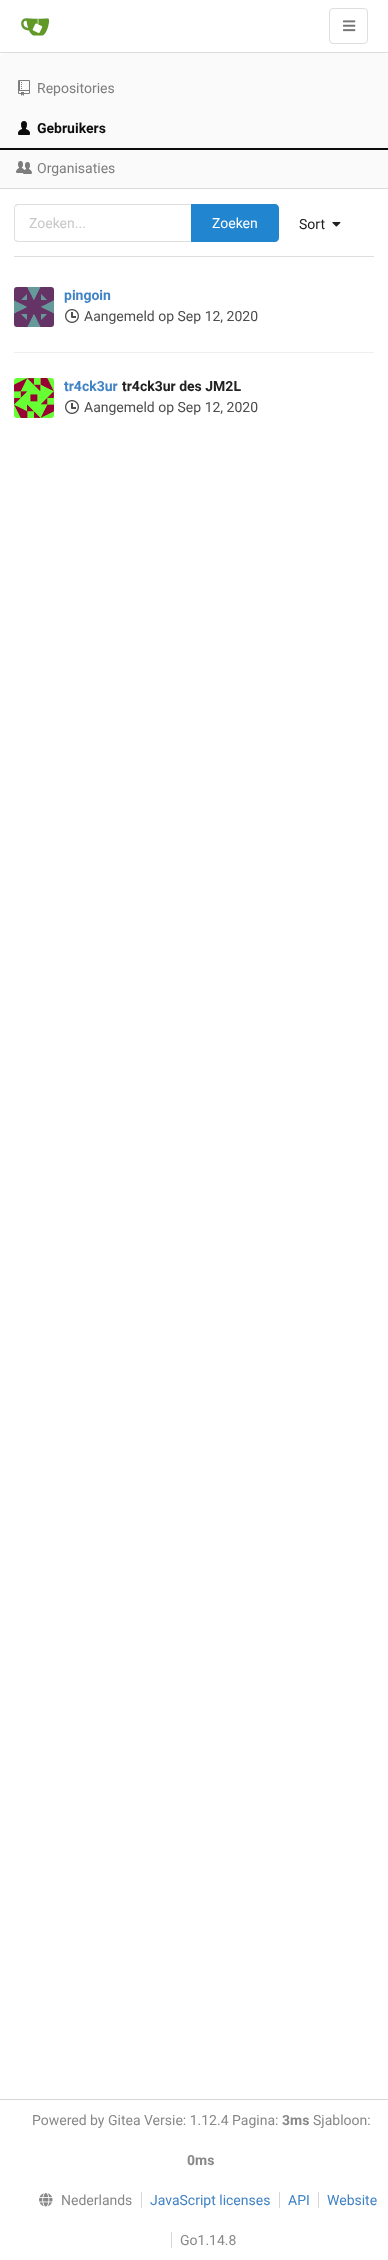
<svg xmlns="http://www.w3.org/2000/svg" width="388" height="2260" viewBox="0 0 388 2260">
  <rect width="100%" height="100%" fill="#ffffff"/>
  <rect x="0" y="52" width="388" height="1" fill="#dddddd"/>
  <image x="21" y="18" width="28" height="18" href="img1.png"/>
  <rect x="329.5" y="8.5" width="38" height="35" rx="3.5" fill="none" stroke="#dedede"/>
  <image x="343" y="20" width="13" height="12" href="img2.png"/>
  <path d="M4 53H384C386 53 388 55 388 57V189H0V57C0 55 2 53 4 53Z" fill="#fafafa"/>
  <rect x="0" y="188" width="388" height="1" fill="#dadada"/>
  <image x="18" y="80" width="12" height="16" href="img3.png"/>
  <text x="37" y="93" font-family="Roboto" font-size="14" fill="#7d7d7d">Repositories</text>
  <rect x="0" y="148" width="388" height="2" fill="#0d0d0d"/>
  <image x="18" y="121" width="12" height="14" href="img4.png"/>
  <text x="37" y="133" font-family="Roboto" font-size="14" font-weight="bold" fill="#0d0d0d">Gebruikers</text>
  <image x="16" y="161" width="16" height="13" href="img5.png"/>
  <text x="37" y="173" font-family="Roboto" font-size="14" fill="#7d7d7d">Organisaties</text>
  <path d="M18 204L15 205L16 206L18 205H190L191 204Z" fill="#dedede"/>
  <path d="M191 242L190 241H18L16 240L15 241L18 242Z" fill="#dedede"/>
  <path d="M14 208V238C14 239 14.5 240 15 241L16 240C15 240 15 239 15 238V208C15 207 15 206 16 206L15 205C14.5 206 14 207 14 208Z" fill="#222426" fill-opacity="0.15"/>
  <text x="29" y="228" font-family="Roboto" font-size="14" fill="#c7c7c7">Zoeken...</text>
  <path d="M191 204H275C277 204 279 206 279 208V238C279 240 277 242 275 242H191Z" fill="#2185d0"/>
  <text x="212" y="228" font-family="Roboto" font-size="14" fill="#ffffff">Zoeken</text>
  <text x="299" y="229" font-family="Roboto" font-size="14" fill="#212121">Sort</text>
  <image x="332" y="222" width="9" height="5" href="img6.png"/>
  <rect x="14" y="256" width="360" height="1" fill="#dedede"/>
  <image x="14" y="287" width="40" height="40" href="img7.png"/>
  <text x="64" y="300" font-family="Roboto" font-size="14" font-weight="bold" fill="#4183c4">pingoin</text>
  <image x="65" y="309" width="14" height="14" href="img8.png"/>
  <text x="84" y="321" font-family="Roboto" font-size="14" fill="#4d4d4d">Aangemeld op Sep 12, 2020</text>
  <rect x="14" y="352" width="360" height="1" fill="#eeeeee"/>
  <image x="14" y="378" width="40" height="40" href="img9.png"/>
  <text x="64" y="391" font-family="Roboto" font-size="14" font-weight="bold" fill="#4183c4">tr4ck3ur</text>
  <text x="122" y="391" font-family="Roboto" font-size="14" font-weight="bold" fill="#212121">tr4ck3ur des JM2L</text>
  <image x="65" y="400" width="14" height="14" href="img8.png"/>
  <text x="84" y="412" font-family="Roboto" font-size="14" fill="#4d4d4d">Aangemeld op Sep 12, 2020</text>
  <rect x="0" y="2099" width="388" height="1" fill="#d6d6d6"/>
  <text x="32" y="2125" font-family="Roboto" font-size="14" fill="#888888">Powered by Gitea Versie: 1.12.4 Pagina:</text>
  <text x="282" y="2125" font-family="Roboto" font-size="14" font-weight="bold" fill="#888888">3ms</text>
  <text x="313" y="2125" font-family="Roboto" font-size="14" fill="#888888">Sjabloon:</text>
  <text x="187" y="2165" font-family="Roboto" font-size="14" font-weight="bold" fill="#888888">0ms</text>
  <image x="39" y="2193" width="14" height="14" href="img10.png"/>
  <text x="61" y="2205" font-family="Roboto" font-size="14" fill="#888888">Nederlands</text>
  <text x="150" y="2205" font-family="Roboto" font-size="14" fill="#4183c4">JavaScript licenses</text>
  <rect x="141" y="2192" width="1" height="16" fill="#d6d6d6"/>
  <text x="288" y="2205" font-family="Roboto" font-size="14" fill="#4183c4">API</text>
  <rect x="279" y="2192" width="1" height="16" fill="#d6d6d6"/>
  <text x="327" y="2205" font-family="Roboto" font-size="14" fill="#4183c4">Website</text>
  <rect x="318" y="2192" width="1" height="16" fill="#d6d6d6"/>
  <text x="180" y="2245" font-family="Roboto" font-size="14" fill="#888888">Go1.14.8</text>
  <rect x="171" y="2232" width="1" height="16" fill="#d6d6d6"/>
</svg>
